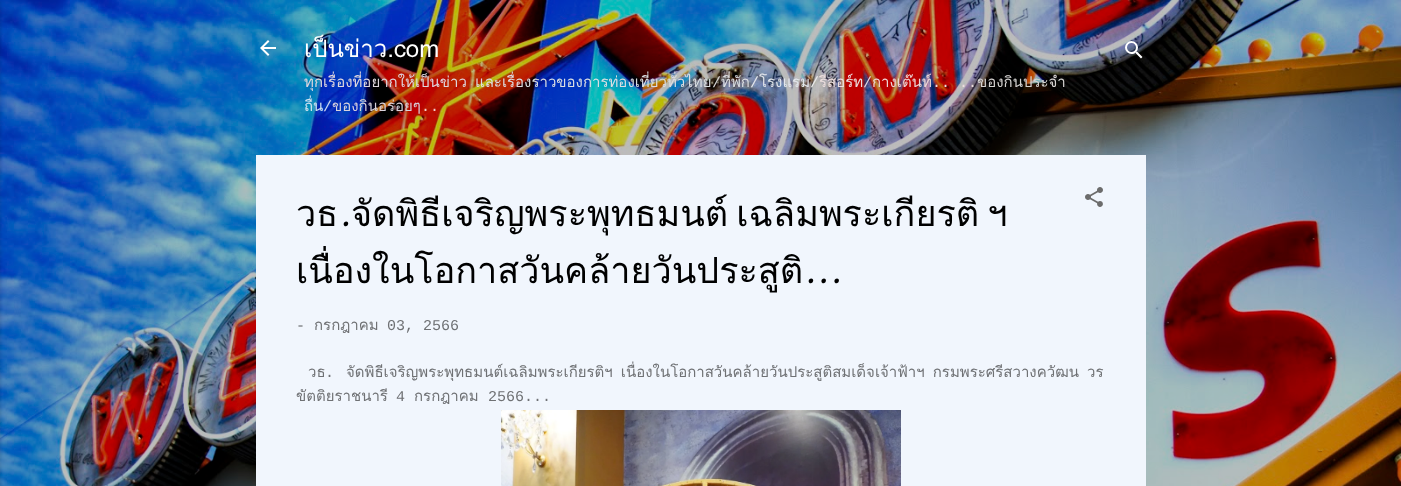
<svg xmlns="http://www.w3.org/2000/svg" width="1401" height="486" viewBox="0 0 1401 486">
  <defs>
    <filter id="blur1" x="-50%" y="-200%" width="200%" height="500%"><feGaussianBlur stdDeviation="1.5"/></filter>
  </defs>
  <rect width="100%" height="100%" fill="#ffffff"/>
  <image x="0" y="0" width="1401" height="486" href="img1.png"/>
  <rect x="-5" y="1" width="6" height="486" fill="#000000" fill-opacity="0.1" filter="url(#blur1)"/>
  <image x="260" y="40" width="16" height="16" href="img2.png"/>
  <text x="304" y="57" font-family="Loma" font-size="24" fill="#ffffff">เป็นข่าว.com</text>
  <text x="304" y="87" font-family="Loma" font-size="15" fill="#ded6dd">ทุกเรื่องที่อยากให้เป็นข่าว</text>
  <text x="475" y="87" font-family="Loma" font-size="15" fill="#dbdee2">และเรื่องราวของการท่องเที่ยวทั่วไทย</text>
  <text x="712" y="87" font-family="Liberation Mono" font-size="15" fill="#d5d3d1">/</text>
  <text x="721" y="87" font-family="Loma" font-size="15" fill="#dbdee2">ที่พัก</text>
  <text x="759" y="87" font-family="Loma" font-size="15" fill="#e3e6ec">โรงแรม</text>
  <text x="810" y="87" font-family="Liberation Mono" font-size="15" fill="#eaeaea">/</text>
  <text x="819" y="87" font-family="Loma" font-size="15" fill="#ecdede">รีสอร์ท</text>
  <text x="872" y="87" font-family="Loma" font-size="15" fill="#ecd6d6">กางเต๊นท์</text>
  <text x="977" y="87" font-family="Loma" font-size="15" fill="#d5d3d1">ของกินประจำ</text>
  <text x="750" y="87" font-family="Liberation Mono" font-size="15" fill="#e3e6ec">/</text>
  <text x="863" y="87" font-family="Liberation Mono" font-size="15" fill="#ded6dd">/</text>
  <text x="932" y="87" font-family="Liberation Mono" font-size="15" fill="#ecdede">.. ..</text>
  <text x="304" y="111" font-family="Loma" font-size="15" fill="#cee2f1">ถื่น</text>
  <text x="323" y="111" font-family="Liberation Mono" font-size="15" fill="#cdd6f1">/</text>
  <text x="332" y="111" font-family="Loma" font-size="15" fill="#d8d3dc">ของกินอร่อยๆ</text>
  <text x="421" y="111" font-family="Liberation Mono" font-size="15" fill="#f1d0cc">..</text>
  <image x="1125" y="41" width="18" height="18" href="img3.png"/>
  <rect x="256" y="155" width="890" height="331" fill="#f1f6fd"/>
  <text x="296" y="226" font-family="Loma" font-size="36" fill="#000000">วธ</text>
  <text x="338" y="226" font-family="Damion" font-size="36" fill="#000000">.</text>
  <text x="351" y="226" word-spacing="-4" font-family="Loma" font-size="36" fill="#000000">จัดพิธีเจริญพระพุทธมนต์ เฉลิมพระเกียรติ ฯ</text>
  <text x="296" y="283" font-family="Loma" font-size="36" fill="#000000">เนื่องในโอกาสวันคล้ายวันประสูติ</text>
  <text x="803" y="283" font-family="Damion" font-size="36" fill="#000000">...</text>
  <image x="1085" y="187" width="18" height="20" href="img4.png"/>
  <text x="296" y="330" font-family="Liberation Mono" font-size="15" fill="#6f7174">-</text>
  <text x="314" y="330" font-family="Loma" font-size="15" fill="#6f7174">กรกฎาคม</text>
  <text x="387" y="330" font-family="Liberation Mono" font-size="15" fill="#6f7174">03, 2566</text>
  <text x="308" y="377" font-family="Loma" font-size="15" fill="#6f7174">วธ</text>
  <text x="325" y="377" font-family="Liberation Mono" font-size="15" fill="#6f7174">.</text>
  <text x="346" y="377" word-spacing="3" font-family="Loma" font-size="15" fill="#6f7174">จัดพิธีเจริญพระพุทธมนต์เฉลิมพระเกียรติฯ เนื่องในโอกาสวันคล้ายวันประสูติสมเด็จเจ้าฟ้าฯ กรมพระศรีสวางควัฒน วร</text>
  <text x="296" y="401" font-family="Loma" font-size="15" fill="#6f7174">ขัตติยราชนารี</text>
  <text x="396" y="401" font-family="Liberation Mono" font-size="15" fill="#6f7174">4</text>
  <text x="414" y="401" font-family="Loma" font-size="15" fill="#6f7174">กรกฎาคม</text>
  <text x="488" y="401" font-family="Liberation Mono" font-size="15" fill="#6f7174">2566...</text>
  <image x="501" y="410" width="400" height="76" href="img5.png"/>
</svg>
